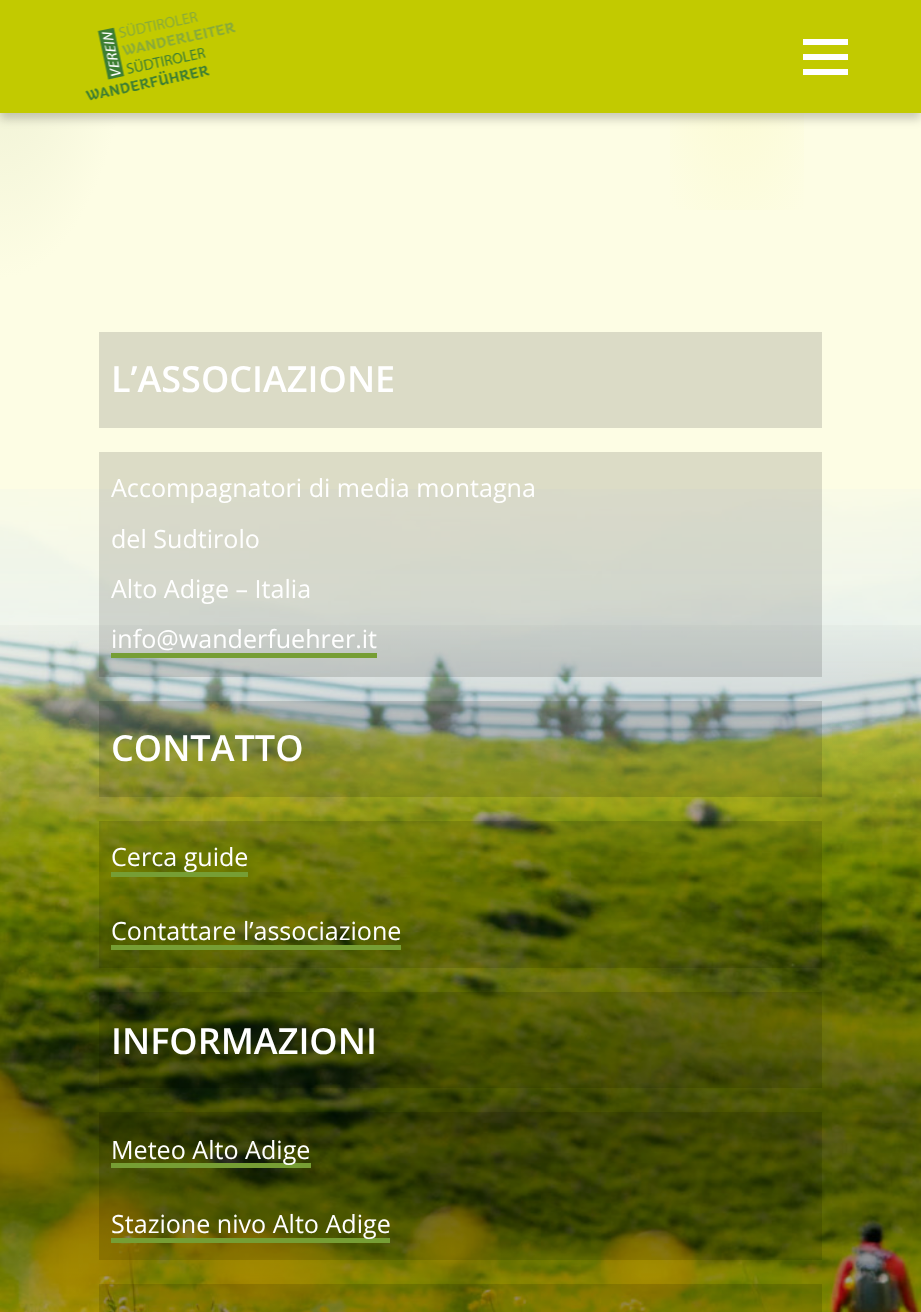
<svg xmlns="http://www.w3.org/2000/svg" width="921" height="1312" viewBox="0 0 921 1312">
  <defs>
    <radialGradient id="g1" gradientUnits="userSpaceOnUse" cx="0" cy="0" r="1" gradientTransform="matrix(1302 0 0 2790 0 0)"><stop offset="0" stop-color="#ecefd1"/><stop offset="0.1" stop-color="#fdfde4"/></radialGradient>
    <radialGradient id="g2" gradientUnits="userSpaceOnUse" cx="0" cy="0" r="1" gradientTransform="matrix(1302 0 0 1674 921 789)"><stop offset="0" stop-color="#e6db0f" stop-opacity="0.1"/><stop offset="0.1" stop-color="#e6db0f" stop-opacity="0"/></radialGradient>
    <radialGradient id="g3" gradientUnits="userSpaceOnUse" cx="0" cy="0" r="1" gradientTransform="matrix(1042 0 0 2790 737 0)"><stop offset="0" stop-color="#e6db0f" stop-opacity="0.1"/><stop offset="0.1" stop-color="#e6db0f" stop-opacity="0"/></radialGradient>
    <filter id="blur1" x="-50%" y="-200%" width="200%" height="500%"><feGaussianBlur stdDeviation="5"/></filter>
    <linearGradient id="g4" gradientUnits="userSpaceOnUse" x1="460" y1="260" x2="461" y2="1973"><stop offset="0" stop-color="#000000" stop-opacity="0"/><stop offset="0.2" stop-color="#000000" stop-opacity="0"/><stop offset="0.5" stop-color="#000000" stop-opacity="0.5"/><stop offset="0.7" stop-color="#000000" stop-opacity="0.2"/><stop offset="0.9" stop-color="#000000" stop-opacity="0.1"/></linearGradient>
  </defs>
  <rect width="100%" height="100%" fill="#ffffff"/>
  <rect x="0" y="113" width="921" height="744" fill="url(#g1)"/>
  <rect x="821" y="658" width="100" height="199" fill="url(#g2)"/>
  <rect x="670" y="113" width="134" height="97" fill="url(#g3)"/>
  <rect x="0" y="6" width="921" height="113" fill="#000000" fill-opacity="0.2" filter="url(#blur1)"/>
  <rect x="0" y="0" width="921" height="113" fill="#c2ca00"/>
  <image x="85" y="12" width="151" height="89" href="img1.png"/>
  <rect x="803" y="39" width="45" height="6" fill="#ffffff"/>
  <rect x="803" y="54" width="45" height="6" fill="#ffffff"/>
  <rect x="803" y="69" width="45" height="6" fill="#ffffff"/>
  <rect x="99" y="332" width="723" height="96" fill="#dbdbc6"/>
  <text x="111" y="392" font-family="Open Sans" font-size="36" font-weight="600" fill="#ffffff">L’ASSOCIAZIONE</text>
  <image x="0" y="489" width="921" height="823" href="img2.png"/>
  <rect x="0" y="625" width="921" height="687" fill="url(#g4)"/>
  <rect x="99" y="452" width="723" height="225" fill="#000000" fill-opacity="0.13"/>
  <text x="111" y="497" font-family="Open Sans" font-size="25.1" fill="#ffffff">Accompagnatori di media montagna</text>
  <text x="111" y="548" font-family="Open Sans" font-size="25.1" fill="#ffffff">del Sudtirolo</text>
  <text x="111" y="598" font-family="Open Sans" font-size="25.1" fill="#ffffff">Alto Adige – Italia</text>
  <text x="111" y="648" font-family="Open Sans" font-size="25.1" fill="#ffffff">info@wanderfuehrer.it</text>
  <rect x="111" y="653" width="266" height="5" fill="#769e34"/>
  <rect x="99" y="701" width="723" height="96" fill="#000000" fill-opacity="0.13"/>
  <text x="111" y="761" font-family="Open Sans" font-size="36" font-weight="600" fill="#ffffff">CONTATTO</text>
  <rect x="99" y="821" width="723" height="73" fill="#000000" fill-opacity="0.13"/>
  <text x="111" y="866" font-family="Open Sans" font-size="25.1" fill="#ffffff">Cerca guide</text>
  <rect x="111" y="872" width="137" height="5" fill="#769e34"/>
  <rect x="99" y="894" width="723" height="74" fill="#000000" fill-opacity="0.13"/>
  <text x="111" y="940" font-family="Open Sans" font-size="25.1" fill="#ffffff">Contattare l’associazione</text>
  <rect x="111" y="945" width="290" height="5" fill="#769e34"/>
  <rect x="99" y="992" width="723" height="96" fill="#000000" fill-opacity="0.13"/>
  <text x="111" y="1054" font-family="Open Sans" font-size="36" font-weight="600" fill="#ffffff">INFORMAZIONI</text>
  <rect x="99" y="1112" width="723" height="75" fill="#000000" fill-opacity="0.13"/>
  <rect x="111" y="1163" width="200" height="5" fill="#769e34"/>
  <text x="111" y="1159" font-family="Open Sans" font-size="25.1" fill="#ffffff">Meteo Alto Adige</text>
  <rect x="99" y="1187" width="723" height="73" fill="#000000" fill-opacity="0.13"/>
  <rect x="111" y="1238" width="279" height="5" fill="#769e34"/>
  <text x="111" y="1233" font-family="Open Sans" font-size="25.1" fill="#ffffff">Stazione nivo Alto Adige</text>
  <rect x="99" y="1284" width="723" height="28" fill="#000000" fill-opacity="0.13"/>
</svg>
